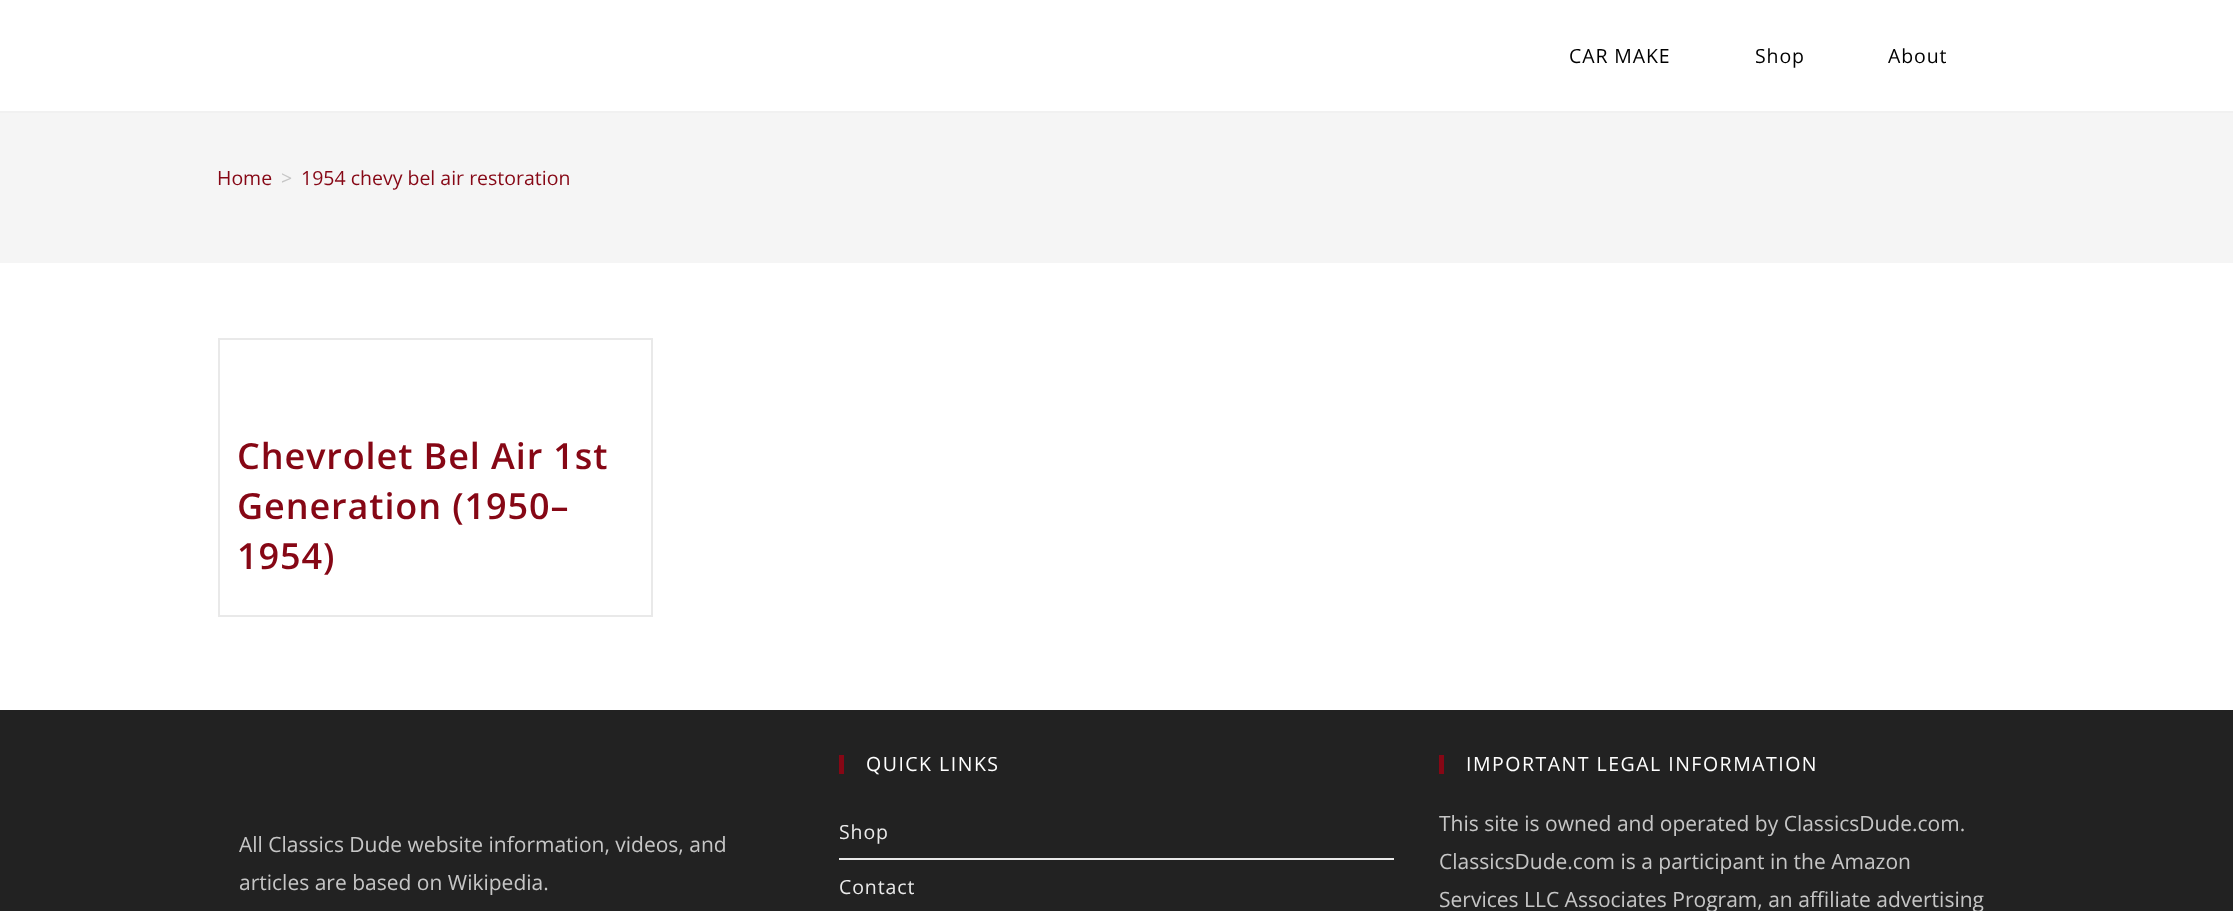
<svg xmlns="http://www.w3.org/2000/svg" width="2233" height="911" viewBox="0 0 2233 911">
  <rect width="100%" height="100%" fill="#ffffff"/>
  <rect x="0" y="111" width="2233" height="2" fill="#f1f1f1"/>
  <text x="1569" y="63" font-family="Open Sans" font-size="19.5" letter-spacing="0.9" fill="#000000">CAR MAKE</text>
  <text x="1755" y="63" font-family="Open Sans" font-size="19.5" letter-spacing="0.9" fill="#000000">Shop</text>
  <text x="1888" y="63" font-family="Open Sans" font-size="19.5" letter-spacing="0.9" fill="#000000">About</text>
  <rect x="0" y="113" width="2233" height="150" fill="#f5f5f5"/>
  <text x="217" y="185" font-family="Open Sans" font-size="19.5" fill="#860715">Home</text>
  <text x="281" y="185" font-family="Open Sans" font-size="19.5" fill="#c6c6c6">&gt;</text>
  <text x="301" y="185" font-family="Open Sans" font-size="19.5" fill="#860715">1954 chevy bel air restoration</text>
  <rect x="219" y="339" width="433" height="277" fill="none" stroke="#e9e9e9" stroke-width="2"/>
  <text x="237" y="469" font-family="Open Sans" font-size="36" font-weight="600" letter-spacing="0.9" fill="#860715">Chevrolet Bel Air 1st</text>
  <text x="237" y="519" font-family="Open Sans" font-size="36" font-weight="600" letter-spacing="0.9" fill="#860715">Generation (1950–</text>
  <text x="237" y="569" font-family="Open Sans" font-size="36" font-weight="600" letter-spacing="0.9" fill="#860715">1954)</text>
  <rect x="0" y="710" width="2233" height="201" fill="#222222"/>
  <text x="239" y="852" font-family="Open Sans" font-size="21" fill="#c6c6c6">All Classics Dude website information, videos, and</text>
  <text x="239" y="890" font-family="Open Sans" font-size="21" fill="#c6c6c6">articles are based on Wikipedia.</text>
  <rect x="839" y="755" width="5" height="19" fill="#860715"/>
  <text x="866" y="771" font-family="Open Sans" font-size="19.5" letter-spacing="1.5" fill="#ffffff">QUICK LINKS</text>
  <rect x="839" y="858" width="555" height="2" fill="#e9e9e9"/>
  <text x="839" y="839" font-family="Open Sans" font-size="19.5" letter-spacing="0.9" fill="#eaeaea">Shop</text>
  <text x="839" y="894" font-family="Open Sans" font-size="19.5" letter-spacing="0.9" fill="#eaeaea">Contact</text>
  <rect x="1439" y="755" width="5" height="19" fill="#860715"/>
  <text x="1466" y="771" font-family="Open Sans" font-size="19.5" letter-spacing="1.5" fill="#ffffff">IMPORTANT LEGAL INFORMATION</text>
  <text x="1439" y="831" font-family="Open Sans" font-size="21" fill="#c6c6c6">This site is owned and operated by ClassicsDude.com.</text>
  <text x="1439" y="869" font-family="Open Sans" font-size="21" fill="#c6c6c6">ClassicsDude.com is a participant in the Amazon</text>
  <text x="1439" y="907" font-family="Open Sans" font-size="21" fill="#c6c6c6">Services LLC Associates Program, an affiliate advertising</text>
</svg>
